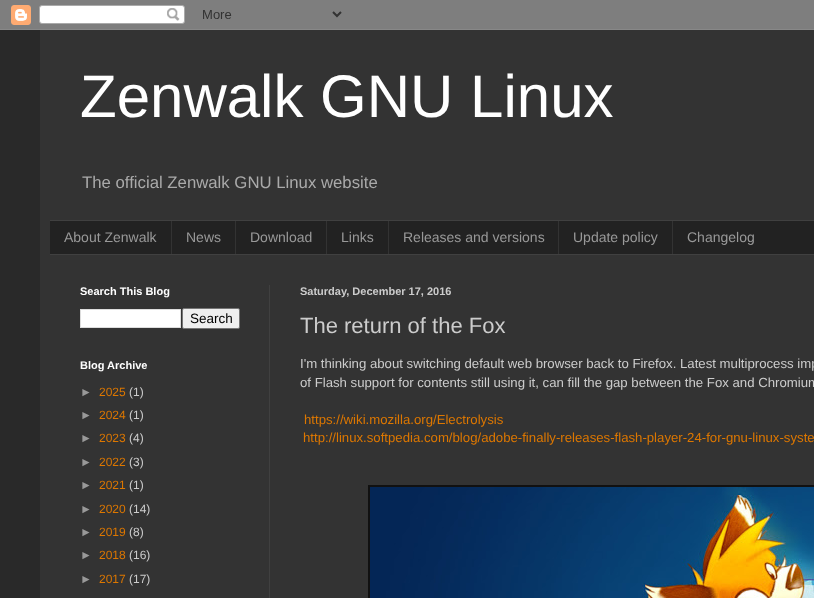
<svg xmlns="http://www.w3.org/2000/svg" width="814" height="598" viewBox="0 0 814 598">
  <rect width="100%" height="100%" fill="#292929"/>
  <image x="0" y="0" width="814" height="30" href="img1.png"/>
  <rect x="40" y="30" width="774" height="568" fill="#333333"/>
  <text x="80" y="117" font-family="Liberation Sans" font-size="60" fill="#ffffff">Zenwalk GNU Linux</text>
  <text x="82" y="188" font-family="Liberation Sans" font-size="16.75" fill="#aaaaaa">The official Zenwalk GNU Linux website</text>
  <rect x="50" y="221" width="764" height="33" fill="#222222"/>
  <rect x="50" y="220" width="764" height="1" fill="#404040"/>
  <rect x="50" y="254" width="764" height="1" fill="#404040"/>
  <text x="64" y="242" font-family="Liberation Sans" font-size="14" fill="#999999">About Zenwalk</text>
  <rect x="171" y="221" width="1" height="33" fill="#333333"/>
  <text x="186" y="242" font-family="Liberation Sans" font-size="14" fill="#999999">News</text>
  <rect x="235" y="221" width="1" height="33" fill="#333333"/>
  <text x="250" y="242" font-family="Liberation Sans" font-size="14" fill="#999999">Download</text>
  <rect x="326" y="221" width="1" height="33" fill="#333333"/>
  <text x="341" y="242" font-family="Liberation Sans" font-size="14" fill="#999999">Links</text>
  <rect x="388" y="221" width="1" height="33" fill="#333333"/>
  <text x="403" y="242" font-family="Liberation Sans" font-size="14" fill="#999999">Releases and versions</text>
  <rect x="558" y="221" width="1" height="33" fill="#333333"/>
  <text x="573" y="242" font-family="Liberation Sans" font-size="14" fill="#999999">Update policy</text>
  <rect x="672" y="221" width="1" height="33" fill="#333333"/>
  <text x="687" y="242" font-family="Liberation Sans" font-size="14" fill="#999999">Changelog</text>
  <rect x="269" y="285" width="1" height="313" fill="#404040"/>
  <text x="80" y="295" font-family="Liberation Sans" font-size="11" font-weight="bold" fill="#ffffff">Search This Blog</text>
  <rect x="80.5" y="309.5" width="100" height="18" fill="#ffffff" stroke="#dddddd"/>
  <rect x="182.5" y="308.5" width="57" height="20" rx="1.5" fill="#efefef" stroke="#767676"/>
  <text x="190" y="323" font-family="Liberation Sans" font-size="13.5" fill="#000000">Search</text>
  <text x="80" y="369" font-family="Liberation Sans" font-size="11" font-weight="bold" fill="#ffffff">Blog Archive</text>
  <text x="80" y="396" font-family="Liberation Sans" font-size="12" fill="#999999">►</text>
  <text x="99" y="396" font-family="Liberation Sans" font-size="12" fill="#dd7700">2025</text>
  <text x="129" y="396" font-family="Liberation Sans" font-size="12" fill="#cccccc">(1)</text>
  <text x="80" y="419" font-family="Liberation Sans" font-size="12" fill="#999999">►</text>
  <text x="99" y="419" font-family="Liberation Sans" font-size="12" fill="#dd7700">2024</text>
  <text x="129" y="419" font-family="Liberation Sans" font-size="12" fill="#cccccc">(1)</text>
  <text x="80" y="442" font-family="Liberation Sans" font-size="12" fill="#999999">►</text>
  <text x="99" y="442" font-family="Liberation Sans" font-size="12" fill="#dd7700">2023</text>
  <text x="129" y="442" font-family="Liberation Sans" font-size="12" fill="#cccccc">(4)</text>
  <text x="80" y="466" font-family="Liberation Sans" font-size="12" fill="#999999">►</text>
  <text x="99" y="466" font-family="Liberation Sans" font-size="12" fill="#dd7700">2022</text>
  <text x="129" y="466" font-family="Liberation Sans" font-size="12" fill="#cccccc">(3)</text>
  <text x="80" y="489" font-family="Liberation Sans" font-size="12" fill="#999999">►</text>
  <text x="99" y="489" font-family="Liberation Sans" font-size="12" fill="#dd7700">2021</text>
  <text x="129" y="489" font-family="Liberation Sans" font-size="12" fill="#cccccc">(1)</text>
  <text x="80" y="513" font-family="Liberation Sans" font-size="12" fill="#999999">►</text>
  <text x="99" y="513" font-family="Liberation Sans" font-size="12" fill="#dd7700">2020</text>
  <text x="129" y="513" font-family="Liberation Sans" font-size="12" fill="#cccccc">(14)</text>
  <text x="80" y="536" font-family="Liberation Sans" font-size="12" fill="#999999">►</text>
  <text x="99" y="536" font-family="Liberation Sans" font-size="12" fill="#dd7700">2019</text>
  <text x="129" y="536" font-family="Liberation Sans" font-size="12" fill="#cccccc">(8)</text>
  <text x="80" y="559" font-family="Liberation Sans" font-size="12" fill="#999999">►</text>
  <text x="99" y="559" font-family="Liberation Sans" font-size="12" fill="#dd7700">2018</text>
  <text x="129" y="559" font-family="Liberation Sans" font-size="12" fill="#cccccc">(16)</text>
  <text x="80" y="583" font-family="Liberation Sans" font-size="12" fill="#999999">►</text>
  <text x="99" y="583" font-family="Liberation Sans" font-size="12" fill="#dd7700">2017</text>
  <text x="129" y="583" font-family="Liberation Sans" font-size="12" fill="#cccccc">(17)</text>
  <text x="300" y="295" font-family="Liberation Sans" font-size="11" font-weight="bold" fill="#cccccc">Saturday, December 17, 2016</text>
  <text x="300" y="333" font-family="Liberation Sans" font-size="22" fill="#cccccc">The return of the Fox</text>
  <text x="300" y="368" font-family="Liberation Sans" font-size="13.2" fill="#cccccc">I'm thinking about switching default web browser back to Firefox. Latest multiprocess imp</text>
  <text x="300" y="387" font-family="Liberation Sans" font-size="13.2" fill="#cccccc">of Flash support for contents still using it, can fill the gap between the Fox and Chromium</text>
  <text x="304" y="424" font-family="Liberation Sans" font-size="13.2" fill="#dd7700">https://wiki.mozilla.org/Electrolysis</text>
  <text x="303" y="442" font-family="Liberation Sans" font-size="13.2" fill="#dd7700">http://linux.softpedia.com/blog/adobe-finally-releases-flash-player-24-for-gnu-linux-syste</text>
  <rect x="368" y="485" width="446" height="113" fill="#111111"/>
  <image x="370" y="487" width="444" height="111" href="img2.png"/>
</svg>
